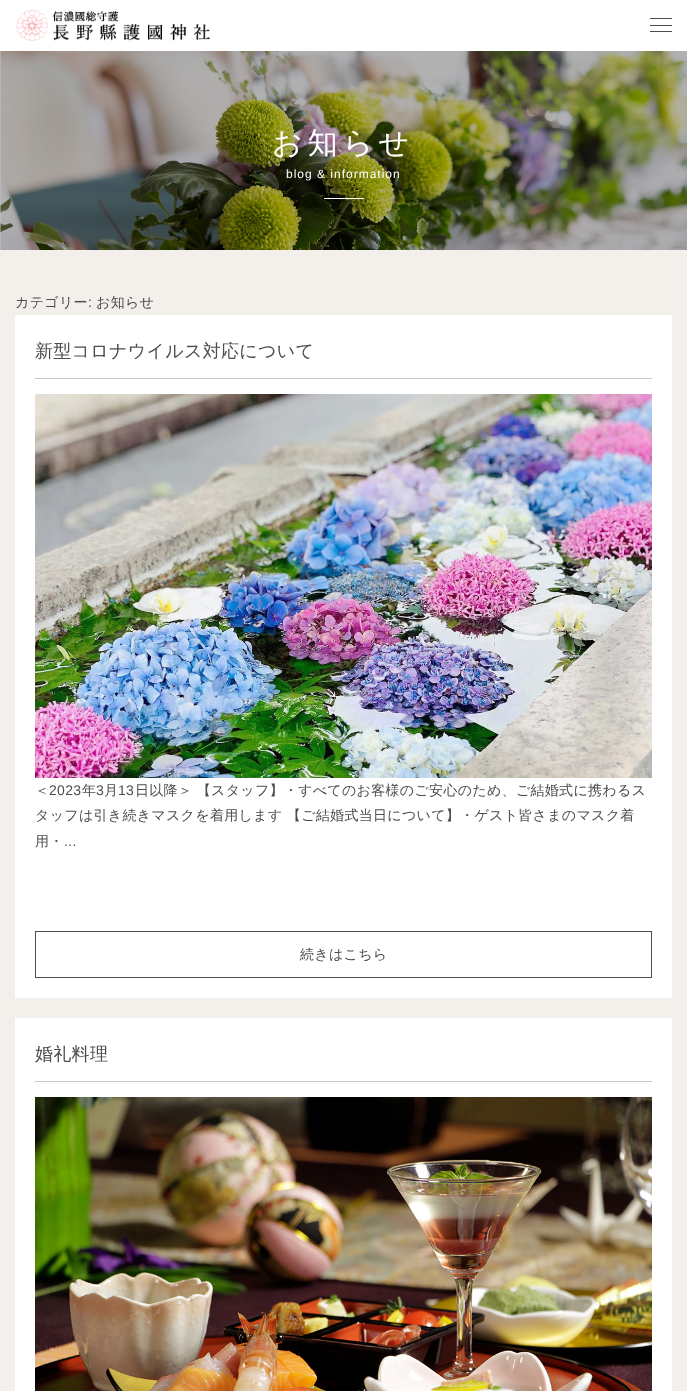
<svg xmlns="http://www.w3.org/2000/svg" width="687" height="1391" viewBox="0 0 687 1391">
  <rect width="100%" height="100%" fill="#f3f0ec"/>
  <rect x="0" y="0" width="687" height="51" fill="#ffffff"/>
  <image x="16" y="10" width="195" height="31" href="img1.png"/>
  <rect x="650" y="18" width="22" height="1" fill="#4d4d4d"/>
  <rect x="650" y="25" width="22" height="1" fill="#4d4d4d"/>
  <rect x="650" y="31" width="22" height="1" fill="#4d4d4d"/>
  <image x="0" y="51" width="687" height="199" href="img2.png"/>
  <text x="272" y="153" font-family="WenQuanYi Zen Hei" font-size="30" font-weight="500" letter-spacing="5" fill="#ffffff">お知らせ</text>
  <text x="286" y="178" font-family="Liberation Sans" font-size="12" letter-spacing="1" fill="#ffffff">blog &amp; information</text>
  <rect x="324" y="198" width="40" height="1" fill="#ffffff"/>
  <text x="15" y="307" font-family="WenQuanYi Zen Hei" font-size="14" font-weight="500" letter-spacing="0.3" fill="#4d4d4d">カテゴリー</text>
  <text x="88" y="307" font-family="Liberation Sans" font-size="14" letter-spacing="0.3" fill="#4d4d4d">:</text>
  <text x="96" y="307" font-family="WenQuanYi Zen Hei" font-size="14" font-weight="500" letter-spacing="0.3" fill="#4d4d4d">お知らせ</text>
  <rect x="15" y="315" width="657" height="683" fill="#ffffff"/>
  <rect x="35" y="378" width="617" height="1" fill="#c8c8c8"/>
  <text x="35" y="357" font-family="WenQuanYi Zen Hei" font-size="18" font-weight="500" letter-spacing="0.3" fill="#4d4d4d">新型コロナウイルス対応について</text>
  <image x="35" y="394" width="617" height="384" href="img3.png"/>
  <text x="35" y="795" font-family="WenQuanYi Zen Hei" font-size="14" font-weight="500" letter-spacing="0.3" fill="#4d4d4d">＜</text>
  <text x="49" y="795" font-family="Liberation Sans" font-size="14" letter-spacing="0.3" fill="#4d4d4d">2023</text>
  <text x="82" y="795" font-family="WenQuanYi Zen Hei" font-size="14" font-weight="500" letter-spacing="0.3" fill="#4d4d4d">年</text>
  <text x="96" y="795" font-family="Liberation Sans" font-size="14" letter-spacing="0.3" fill="#4d4d4d">3</text>
  <text x="104" y="795" font-family="WenQuanYi Zen Hei" font-size="14" font-weight="500" letter-spacing="0.3" fill="#4d4d4d">月</text>
  <text x="118" y="795" font-family="Liberation Sans" font-size="14" letter-spacing="0.3" fill="#4d4d4d">13</text>
  <text x="135" y="795" font-family="WenQuanYi Zen Hei" font-size="14" font-weight="500" letter-spacing="0.3" fill="#4d4d4d">日以降＞ 【スタッフ】・すべてのお客様のご安心のため、ご結婚式に携わるス</text>
  <text x="35" y="820" font-family="WenQuanYi Zen Hei" font-size="14" font-weight="500" letter-spacing="0.3" fill="#4d4d4d">タッフは引き続きマスクを着用します 【ご結婚式当日について】・ゲスト皆さまのマスク着</text>
  <text x="35" y="846" font-family="WenQuanYi Zen Hei" font-size="14" font-weight="500" letter-spacing="0.3" fill="#4d4d4d">用・</text>
  <text x="64" y="846" font-family="Liberation Sans" font-size="14" letter-spacing="0.3" fill="#4d4d4d">...</text>
  <rect x="35.5" y="931.5" width="616" height="46" fill="none" stroke="#4d4d4d"/>
  <text x="300" y="959" font-family="WenQuanYi Zen Hei" font-size="14" font-weight="500" letter-spacing="0.3" fill="#4d4d4d">続きはこちら</text>
  <rect x="15" y="1018" width="657" height="373" fill="#ffffff"/>
  <rect x="35" y="1081" width="617" height="1" fill="#c8c8c8"/>
  <text x="35" y="1060" font-family="WenQuanYi Zen Hei" font-size="18" font-weight="500" letter-spacing="0.3" fill="#4d4d4d">婚礼料理</text>
  <image x="35" y="1097" width="617" height="294" href="img4.png"/>
</svg>
